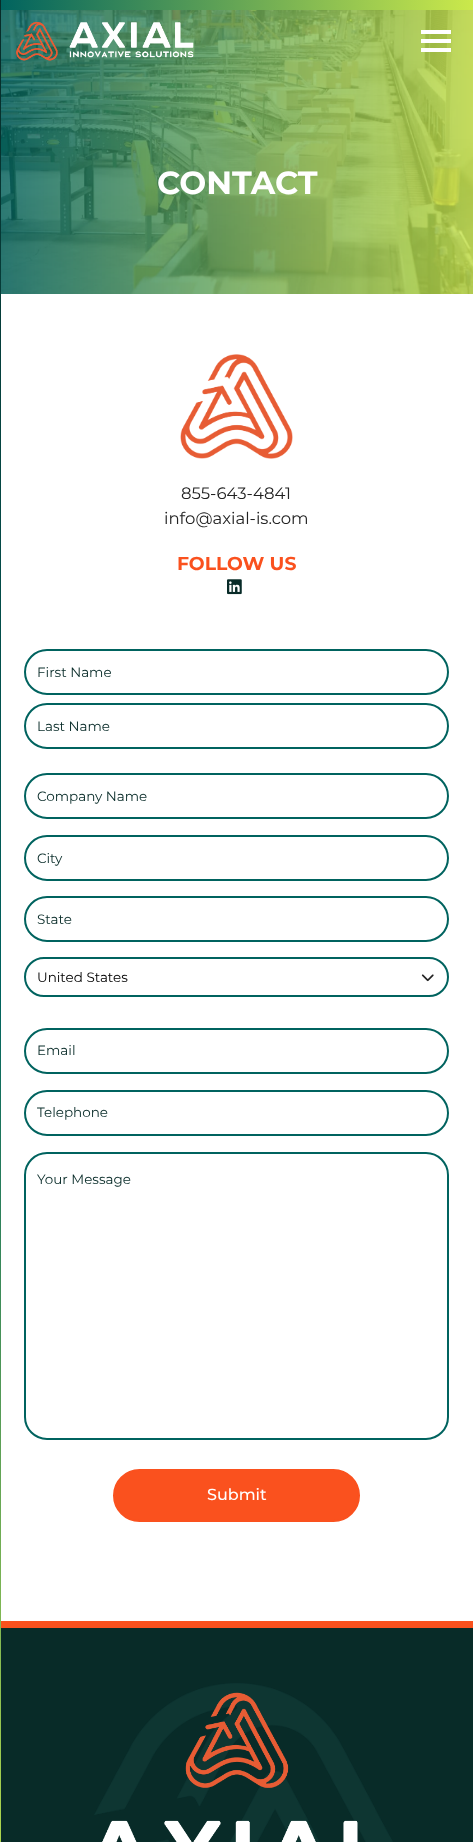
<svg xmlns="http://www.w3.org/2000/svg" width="473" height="1842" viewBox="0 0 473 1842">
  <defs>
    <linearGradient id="g1" gradientUnits="userSpaceOnUse" x1="306" y1="177" x2="-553" y2="1665"><stop offset="0" stop-color="#082b28"/><stop offset="0.5" stop-color="#00635f"/><stop offset="1" stop-color="#cbe94b"/></linearGradient>
    <linearGradient id="g2" gradientUnits="userSpaceOnUse" x1="0" y1="5" x2="473" y2="5"><stop offset="0" stop-color="#00635f"/><stop offset="1" stop-color="#cbe94b"/></linearGradient>
  </defs>
  <rect width="100%" height="100%" fill="#ffffff"/>
  <rect x="0" y="1621" width="473" height="7" fill="#fa511e"/>
  <rect x="0" y="0" width="1" height="1842" fill="url(#g1)"/>
  <rect x="1" y="0" width="472" height="10" fill="url(#g2)"/>
  <image x="1" y="10" width="472" height="284" href="img2.png"/>
  <image x="16" y="22" width="178" height="39" href="img1.png"/>
  <rect x="421" y="30" width="30" height="4" fill="#ffffff"/>
  <rect x="421" y="39" width="30" height="4" fill="#ffffff"/>
  <rect x="421" y="48" width="30" height="4" fill="#ffffff"/>
  <text x="157" y="194" font-family="Montserrat" font-size="32" font-weight="bold" fill="#ffffff">CONTACT</text>
  <image x="180" y="354" width="113" height="105" href="img3.png"/>
  <text x="181" y="499" font-family="Montserrat" font-size="16.5" fill="#222222">855-643-4841</text>
  <text x="164" y="524" font-family="Montserrat" font-size="16.5" fill="#222222">info@axial-is.com</text>
  <text x="177" y="570" font-family="Montserrat" font-size="18.75" font-weight="bold" fill="#fa511e">FOLLOW US</text>
  <image x="227" y="579" width="15" height="16" href="img4.png"/>
  <rect x="25" y="650" width="423" height="44" rx="22" fill="none" stroke="#00635f" stroke-width="2"/>
  <text x="37" y="677" font-family="Montserrat" font-size="13.5" fill="#082b28">First Name</text>
  <rect x="25" y="704" width="423" height="44" rx="22" fill="none" stroke="#00635f" stroke-width="2"/>
  <text x="37" y="731" font-family="Montserrat" font-size="13.5" fill="#082b28">Last Name</text>
  <rect x="25" y="774" width="423" height="44" rx="22" fill="none" stroke="#00635f" stroke-width="2"/>
  <text x="37" y="801" font-family="Montserrat" font-size="13.5" fill="#082b28">Company Name</text>
  <rect x="25" y="836" width="423" height="44" rx="22" fill="none" stroke="#00635f" stroke-width="2"/>
  <text x="37" y="863" font-family="Montserrat" font-size="13.5" fill="#082b28">City</text>
  <rect x="25" y="897" width="423" height="44" rx="22" fill="none" stroke="#00635f" stroke-width="2"/>
  <text x="37" y="924" font-family="Montserrat" font-size="13.5" fill="#082b28">State</text>
  <rect x="25" y="958" width="423" height="38" rx="19" fill="none" stroke="#00635f" stroke-width="2"/>
  <text x="37" y="982" font-family="Montserrat" font-size="13.5" fill="#000000">United States</text>
  <image x="421" y="974" width="13" height="8" href="img5.png"/>
  <rect x="25" y="1029" width="423" height="44" rx="22" fill="none" stroke="#00635f" stroke-width="2"/>
  <text x="37" y="1055" font-family="Montserrat" font-size="13.5" fill="#082b28">Email</text>
  <rect x="25" y="1091" width="423" height="44" rx="22" fill="none" stroke="#00635f" stroke-width="2"/>
  <text x="37" y="1117" font-family="Montserrat" font-size="13.5" fill="#082b28">Telephone</text>
  <rect x="25" y="1153" width="423" height="286" rx="22" fill="none" stroke="#00635f" stroke-width="2"/>
  <text x="37" y="1184" font-family="Montserrat" font-size="13.5" fill="#082b28">Your Message</text>
  <rect x="114" y="1470" width="245" height="51" rx="25.5" fill="#fa511e" stroke="#fa511e" stroke-width="2"/>
  <text x="207" y="1500" font-family="Montserrat" font-size="16" font-weight="500" fill="#ffffff">Submit</text>
  <rect x="1" y="1628" width="472" height="214" fill="#082b28"/>
  <image x="94" y="1683" width="299" height="159" href="img7.png"/>
  <image x="102" y="1692" width="256" height="150" href="img6.png"/>
</svg>
